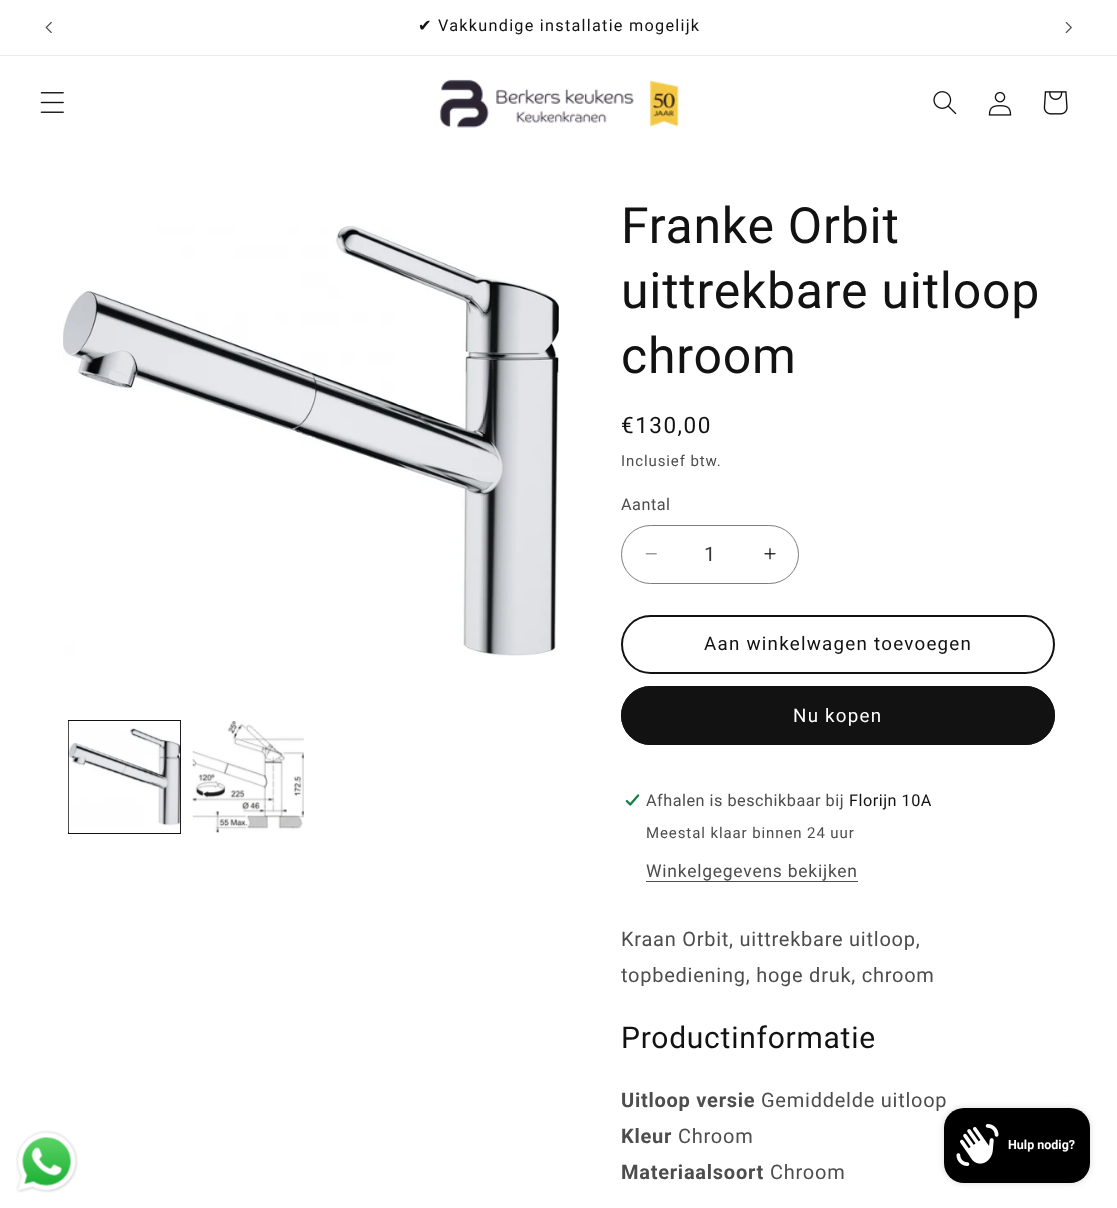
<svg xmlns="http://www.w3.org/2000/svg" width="1117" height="1208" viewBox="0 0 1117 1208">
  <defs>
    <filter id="blur1" x="-50%" y="-200%" width="200%" height="500%"><feGaussianBlur stdDeviation="3"/></filter>
  </defs>
  <rect width="100%" height="100%" fill="#ffffff"/>
  <rect x="0" y="55" width="1117" height="1" fill="#ececec"/>
  <image x="45" y="21" width="7" height="12" href="img1.png"/>
  <text x="418" y="31" font-family="DejaVu Sans" font-size="16.25" letter-spacing="1.25" fill="#121212">✔</text>
  <text x="438" y="31" font-family="Roboto" font-size="16.25" letter-spacing="1.25" fill="#121212">Vakkundige installatie mogelijk</text>
  <image x="1065" y="22" width="7" height="11" href="img2.png"/>
  <image x="40" y="92" width="24" height="21" href="img3.png"/>
  <image x="439" y="79" width="240" height="49" href="img4.png"/>
  <image x="933" y="91" width="24" height="24" href="img5.png"/>
  <image x="988" y="91" width="24" height="25" href="img6.png"/>
  <image x="1043" y="91" width="25" height="24" href="img7.png"/>
  <image x="16" y="1130" width="62" height="63" href="img8.png"/>
  <image x="63" y="225" width="496" height="432" href="img9.png"/>
  <rect x="68.5" y="720.5" width="112" height="113" fill="none" stroke="#121212"/>
  <image x="68" y="721" width="113" height="112" href="img10.png"/>
  <image x="192" y="721" width="112" height="112" href="img11.png"/>
  <text x="621" y="243" font-family="Roboto" font-size="50" letter-spacing="0.75" fill="#121212">Franke Orbit</text>
  <text x="621" y="308" font-family="Roboto" font-size="50" letter-spacing="0.75" fill="#121212">uittrekbare uitloop</text>
  <text x="621" y="373" font-family="Roboto" font-size="50" letter-spacing="0.75" fill="#121212">chroom</text>
  <text x="621" y="433" font-family="Roboto" font-size="22.5" letter-spacing="1.5" fill="#121212">€130,00</text>
  <text x="621" y="466" font-family="Roboto" font-size="15" letter-spacing="0.9" fill="#4d4d4d">Inclusief btw.</text>
  <text x="621" y="510" font-family="Roboto" font-size="16.25" letter-spacing="0.5" fill="#4d4d4d">Aantal</text>
  <image x="645" y="553" width="12" height="2" href="img12.png"/>
  <image x="764" y="548" width="12" height="12" href="img13.png"/>
  <rect x="621.5" y="525.5" width="177" height="58" rx="29" fill="none" stroke="#7d7d7d"/>
  <text x="704" y="561" font-family="Roboto" font-size="20" fill="#363636">1</text>
  <rect x="622" y="616" width="432" height="57" rx="28.5" fill="none" stroke="#121212" stroke-width="2"/>
  <text x="704" y="650" font-family="Roboto" font-size="18.75" letter-spacing="1.25" fill="#121212">Aan winkelwagen toevoegen</text>
  <rect x="621" y="686" width="434" height="59" rx="29.5" fill="#121212"/>
  <rect x="621.5" y="686.5" width="433" height="58" rx="29" fill="none" stroke="#121212"/>
  <text x="793" y="722" font-family="Roboto" font-size="18.75" letter-spacing="1.25" fill="#ffffff">Nu kopen</text>
  <image x="625" y="793" width="15" height="14" href="img14.png"/>
  <text x="646" y="806" font-family="Roboto" font-size="16.25" letter-spacing="0.5" fill="#4d4d4d">Afhalen is beschikbaar bij</text>
  <text x="849" y="806" font-family="Roboto" font-size="16.25" letter-spacing="0.5" fill="#121212">Florijn 10A</text>
  <text x="646" y="838" font-family="Roboto" font-size="15" letter-spacing="0.9" fill="#4d4d4d">Meestal klaar binnen 24 uur</text>
  <text x="646" y="877" font-family="Roboto" font-size="17.5" letter-spacing="0.75" fill="#4d4d4d">Winkelgegevens bekijken</text>
  <rect x="646" y="881" width="212" height="1" fill="#4d4d4d"/>
  <text x="621" y="946" font-family="Roboto" font-size="20" letter-spacing="0.75" fill="#4d4d4d">Kraan Orbit, uittrekbare uitloop,</text>
  <text x="621" y="982" font-family="Roboto" font-size="20" letter-spacing="0.75" fill="#4d4d4d">topbediening, hoge druk, chroom</text>
  <text x="621" y="1048" font-family="Roboto" font-size="30" letter-spacing="0.75" fill="#121212">Productinformatie</text>
  <text x="621" y="1107" font-family="Roboto" font-size="20" font-weight="bold" letter-spacing="0.75" fill="#4d4d4d">Uitloop versie</text>
  <text x="761" y="1107" font-family="Roboto" font-size="20" letter-spacing="0.75" fill="#4d4d4d">Gemiddelde uitloop</text>
  <text x="621" y="1143" font-family="Roboto" font-size="20" font-weight="bold" letter-spacing="0.75" fill="#4d4d4d">Kleur</text>
  <text x="678" y="1143" font-family="Roboto" font-size="20" letter-spacing="0.75" fill="#4d4d4d">Chroom</text>
  <text x="621" y="1179" font-family="Roboto" font-size="20" font-weight="bold" letter-spacing="0.75" fill="#4d4d4d">Materiaalsoort</text>
  <text x="770" y="1179" font-family="Roboto" font-size="20" letter-spacing="0.75" fill="#4d4d4d">Chroom</text>
  <rect x="944" y="1108" width="146" height="75" rx="20" fill="#000000" fill-opacity="0.15" filter="url(#blur1)"/>
  <rect x="944" y="1108" width="146" height="75" rx="20" fill="#000000"/>
  <image x="956" y="1124" width="43" height="42" href="img15.png"/>
  <text x="1008" y="1149" font-family="Roboto" font-size="12.5" font-weight="bold" fill="#ffffff">Hulp nodig?</text>
</svg>
